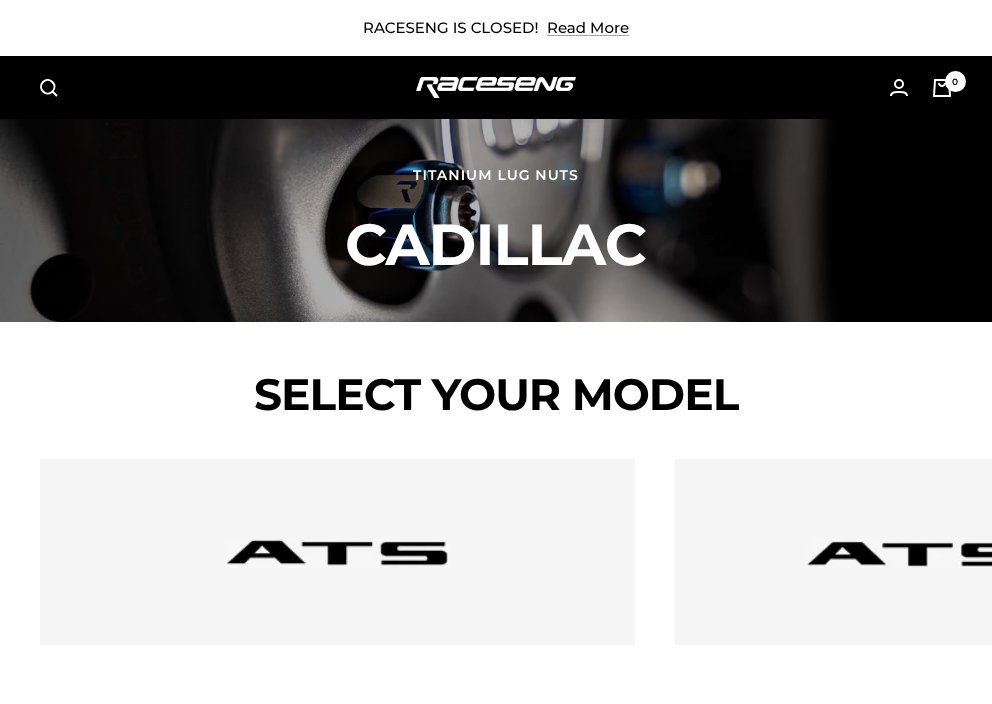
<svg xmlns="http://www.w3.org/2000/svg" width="992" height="704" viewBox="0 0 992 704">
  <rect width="100%" height="100%" fill="#ffffff"/>
  <text x="363" y="33" font-family="Montserrat" font-size="15" font-weight="500" fill="#000000">RACESENG IS CLOSED!</text>
  <text x="547" y="33" font-family="Montserrat" font-size="15" font-weight="500" fill="#000000">Read More</text>
  <rect x="547" y="35" width="82" height="1" fill="#a6a6a6"/>
  <rect x="0" y="56" width="992" height="63" fill="#000000"/>
  <path d="M52.5 91.5C58.5 85 49.5 76 43 82C37 88.5 46 97.5 52.5 91.5ZM52.5 91.5L57 96" fill="none" stroke="#ffffff" stroke-width="2"/>
  <image x="416" y="77" width="160" height="21" href="img1.png"/>
  <circle cx="899" cy="84" r="4" fill="none" stroke="#ffffff" stroke-width="2"/>
  <path d="M891 96C891 91.5 896 92 899 92C902 92 907 91.5 907 96" fill="none" stroke="#ffffff" stroke-width="2"/>
  <image x="932" y="79" width="20" height="18" href="img2.png"/>
  <circle cx="955.5" cy="81.5" r="10.5" fill="#ffffff"/>
  <text x="952" y="85" font-family="Montserrat" font-size="9" font-weight="600" fill="#000000">0</text>
  <image x="0" y="119" width="992" height="203" href="img3.png"/>
  <text x="413" y="180" font-family="Montserrat" font-size="14" font-weight="600" letter-spacing="1" fill="#ffffff">TITANIUM LUG NUTS</text>
  <text x="345" y="265" font-family="Montserrat" font-size="58" font-weight="bold" letter-spacing="-1" fill="#ffffff">CADILLAC</text>
  <text x="254" y="410" font-family="Montserrat" font-size="44" font-weight="bold" letter-spacing="-1" fill="#000000">SELECT YOUR MODEL</text>
  <rect x="40" y="459" width="595" height="186" fill="#f5f5f5"/>
  <image x="225" y="539" width="224" height="29" href="img4.png"/>
  <rect x="675" y="459" width="317" height="186" fill="#f5f5f5"/>
  <image x="807" y="539" width="185" height="29" href="img5.png"/>
</svg>
